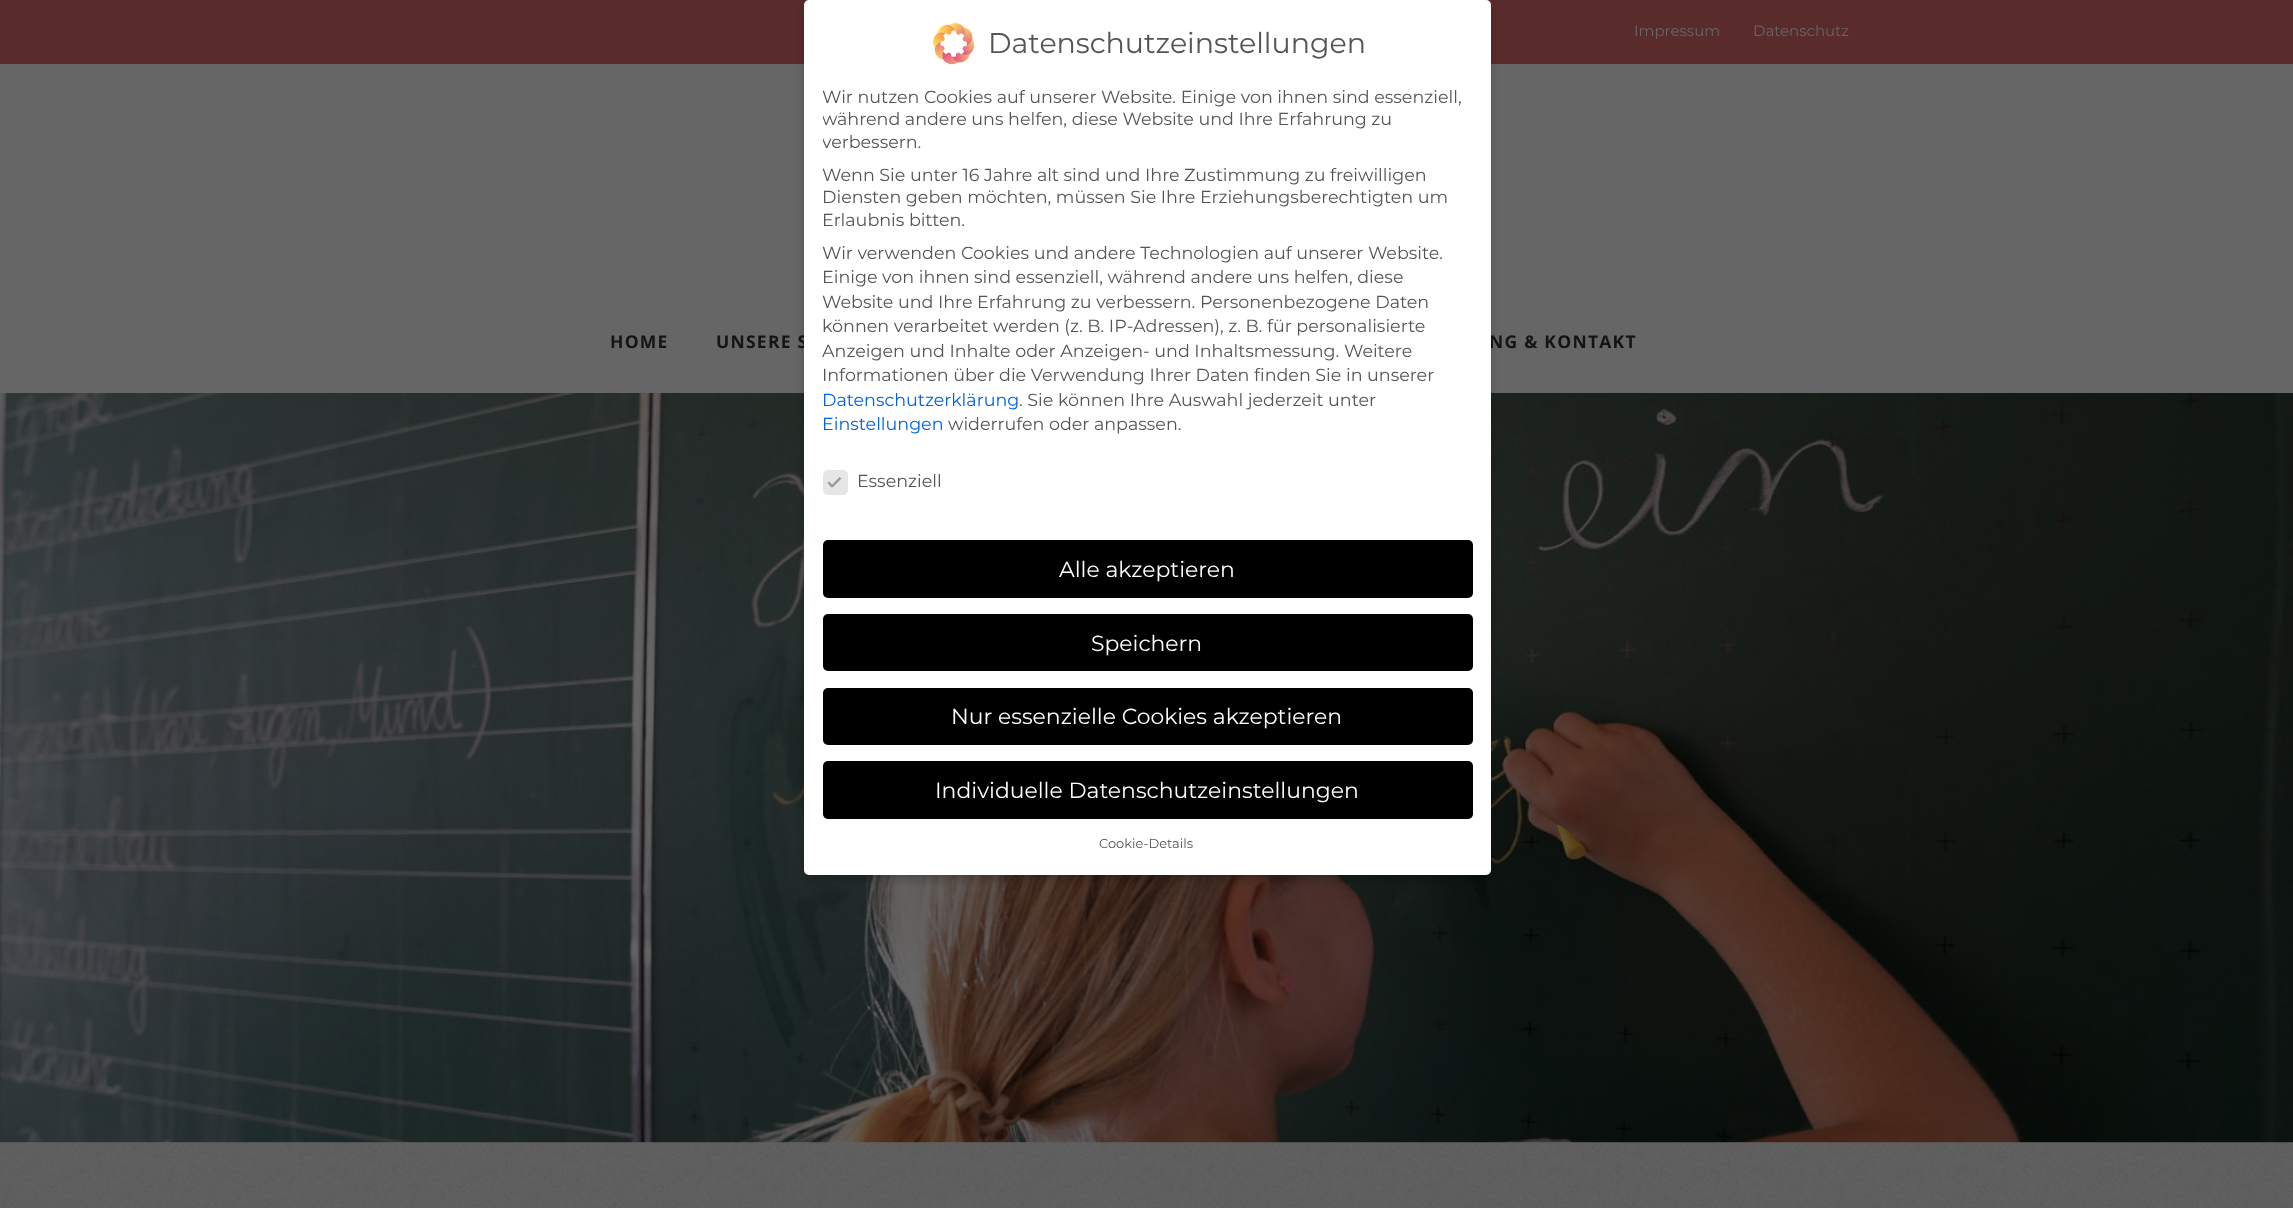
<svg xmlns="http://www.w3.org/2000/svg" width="2293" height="1208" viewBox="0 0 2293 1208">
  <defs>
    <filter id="blur1" x="-50%" y="-200%" width="200%" height="500%"><feGaussianBlur stdDeviation="5"/></filter>
    <clipPath id="clip1"><rect x="823" y="85" width="650" height="353"/></clipPath>
  </defs>
  <rect width="100%" height="100%" fill="#666666"/>
  <rect x="0" y="0" width="2293" height="64" fill="#5a2b2b"/>
  <text x="1634" y="36" font-family="Montserrat" font-size="15" fill="#666666">Impressum</text>
  <text x="1753" y="36" font-family="Montserrat" font-size="15" fill="#666666">Datenschutz</text>
  <text x="610" y="348" font-family="Open Sans" font-size="17.5" font-weight="bold" letter-spacing="1.25" fill="#141414">HOME</text>
  <text x="716" y="348" font-family="Open Sans" font-size="17.5" font-weight="bold" letter-spacing="1.25" fill="#141414">UNSERE S</text>
  <text x="1489" y="348" font-family="Open Sans" font-size="17.5" font-weight="bold" letter-spacing="1.25" fill="#141414">NG &amp; KONTAKT</text>
  <image x="0" y="393" width="2293" height="750" href="img1.png"/>
  <image x="0" y="1142" width="2293" height="66" href="img2.png"/>
  <rect x="804" y="5" width="687" height="875" rx="5" fill="#000000" fill-opacity="0.2" filter="url(#blur1)"/>
  <rect x="804" y="0" width="687" height="875" rx="5" fill="#ffffff"/>
  <image x="933" y="23" width="42" height="42" href="img3.png"/>
  <text x="988" y="53" font-family="Montserrat" font-size="28.5" fill="#555555">Datenschutzeinstellungen</text>
  <text x="822" y="103" font-family="Montserrat" font-size="17.5" fill="#555555">Wir nutzen Cookies auf unserer Website. Einige von ihnen sind essenziell,</text>
  <g clip-path="url(#clip1)">
    <text x="822" y="125" font-family="Montserrat" font-size="17.5" fill="#555555">während andere uns helfen, diese Website und Ihre Erfahrung zu</text>
    <text x="822" y="148" font-family="Montserrat" font-size="17.5" fill="#555555">verbessern.</text>
  </g>
  <text x="822" y="181" font-family="Montserrat" font-size="17.5" fill="#555555">Wenn Sie unter 16 Jahre alt sind und Ihre Zustimmung zu freiwilligen</text>
  <text x="822" y="203" font-family="Montserrat" font-size="17.5" fill="#555555">Diensten geben möchten, müssen Sie Ihre Erziehungsberechtigten um</text>
  <text x="822" y="226" font-family="Montserrat" font-size="17.5" fill="#555555">Erlaubnis bitten.</text>
  <text x="822" y="259" font-family="Montserrat" font-size="17.5" fill="#555555">Wir verwenden Cookies und andere Technologien auf unserer Website.</text>
  <text x="822" y="283" font-family="Montserrat" font-size="17.5" fill="#555555">Einige von ihnen sind essenziell, während andere uns helfen, diese</text>
  <text x="822" y="308" font-family="Montserrat" font-size="17.5" fill="#555555">Website und Ihre Erfahrung zu verbessern. Personenbezogene Daten</text>
  <text x="822" y="332" font-family="Montserrat" font-size="17.5" fill="#555555">können verarbeitet werden (z. B. IP-Adressen), z. B. für personalisierte</text>
  <text x="822" y="357" font-family="Montserrat" font-size="17.5" fill="#555555">Anzeigen und Inhalte oder Anzeigen- und Inhaltsmessung. Weitere</text>
  <text x="822" y="381" font-family="Montserrat" font-size="17.5" fill="#555555">Informationen über die Verwendung Ihrer Daten finden Sie in unserer</text>
  <text x="822" y="406" font-family="Montserrat" font-size="17.5" fill="#0063e3">Datenschutzerklärung</text>
  <text x="1019" y="406" font-family="Montserrat" font-size="17.5" fill="#555555">. Sie können Ihre Auswahl jederzeit unter</text>
  <text x="822" y="430" font-family="Montserrat" font-size="17.5" fill="#0063e3">Einstellungen</text>
  <text x="948" y="430" font-family="Montserrat" font-size="17.5" fill="#555555">widerrufen oder anpassen.</text>
  <rect x="824.5" y="471.5" width="22" height="22" rx="3.5" fill="#e6e6e6" stroke="#e6e6e6" stroke-width="3"/>
  <path d="M839.5 477L841.5 478.5L832.5 487.5L831 486Z" fill="#999999"/>
  <path d="M829 481.5L833.5 486L831.5 487.5L827.5 483Z" fill="#999999"/>
  <text x="857" y="487" font-family="Montserrat" font-size="17.5" fill="#555555">Essenziell</text>
  <rect x="823" y="540" width="650" height="58" rx="5" fill="#000000"/>
  <text x="1059" y="577" font-family="Montserrat" font-size="21.9" fill="#ffffff">Alle akzeptieren</text>
  <rect x="823" y="614" width="650" height="57" rx="5" fill="#000000"/>
  <text x="1091" y="651" font-family="Montserrat" font-size="21.9" fill="#ffffff">Speichern</text>
  <rect x="823" y="688" width="650" height="57" rx="5" fill="#000000"/>
  <text x="951" y="724" font-family="Montserrat" font-size="21.9" fill="#ffffff">Nur essenzielle Cookies akzeptieren</text>
  <rect x="823" y="761" width="650" height="58" rx="5" fill="#000000"/>
  <text x="935" y="798" font-family="Montserrat" font-size="21.9" fill="#ffffff">Individuelle Datenschutzeinstellungen</text>
  <text x="1099" y="848" font-family="Montserrat" font-size="13" fill="#555555">Cookie-Details</text>
</svg>
